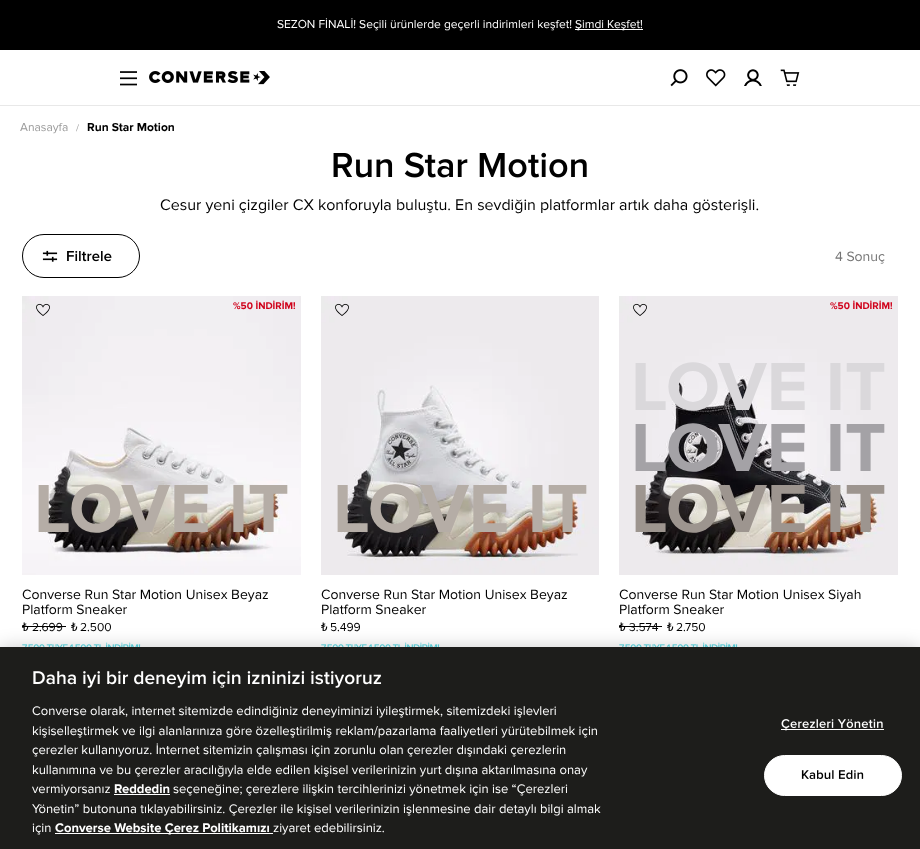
<svg xmlns="http://www.w3.org/2000/svg" width="920" height="849" viewBox="0 0 920 849">
  <defs>
    <filter id="blur1" x="-50%" y="-200%" width="200%" height="500%"><feGaussianBlur stdDeviation="9"/></filter>
  </defs>
  <rect width="100%" height="100%" fill="#ffffff"/>
  <rect x="0" y="0" width="920" height="50" fill="#000000"/>
  <text x="277" y="28" font-family="Proxima Nova" font-size="12" fill="#ffffff">SEZON FİNALİ! Seçili ürünlerde geçerli indirimleri keşfet!</text>
  <rect x="575" y="29" width="68" height="1" fill="#ffffff"/>
  <text x="575" y="28" font-family="Proxima Nova" font-size="12" fill="#ffffff">Şimdi Keşfet!</text>
  <rect x="0" y="105" width="920" height="1" fill="#e8e8e8"/>
  <image x="120" y="71" width="17" height="15" href="img1.png"/>
  <image x="149" y="71" width="121" height="14" href="img2.png"/>
  <image x="670" y="69" width="18" height="18" href="img3.png"/>
  <image x="706" y="69" width="20" height="18" href="img4.png"/>
  <image x="744" y="69" width="18" height="17" href="img5.png"/>
  <image x="780" y="69" width="20" height="17" href="img6.png"/>
  <text x="20" y="131" font-family="Proxima Nova" font-size="12" fill="#9b9b9b">Anasayfa</text>
  <text x="76" y="131" font-family="Proxima Nova" font-size="10" fill="#9b9b9b">/</text>
  <text x="87" y="131" font-family="Proxima Nova" font-size="12" font-weight="bold" fill="#000000">Run Star Motion</text>
  <image x="333" y="152" width="254" height="26" href="img7.png"/>
  <text x="160" y="210" font-family="Proxima Nova" font-size="16" fill="#000000">Cesur yeni çizgiler CX konforuyla buluştu. En sevdiğin platformlar artık daha gösterişli.</text>
  <rect x="22.5" y="234.5" width="117" height="43" rx="21.5" fill="none" stroke="#000000"/>
  <image x="42" y="250" width="16" height="12" href="img8.png"/>
  <image x="67" y="250" width="45" height="12" href="img9.png"/>
  <text x="835" y="261" font-family="Proxima Nova" font-size="14" fill="#757575">4 Sonuç</text>
  <image x="22" y="296" width="279" height="279" href="img10.png"/>
  <text x="233" y="309" font-family="Proxima Nova" font-size="10" font-weight="bold" fill="#d0021b">%50 İNDİRİM!</text>
  <text x="34" y="532" font-family="Proxima Nova" font-size="70.5" font-weight="bold" fill="#b5ada6">LOVE IT</text>
  <image x="36" y="303" width="14" height="13" href="img11.png"/>
  <text x="22" y="599" font-family="Proxima Nova" font-size="14" fill="#000000">Converse Run Star Motion Unisex Beyaz</text>
  <text x="22" y="614" font-family="Proxima Nova" font-size="14" fill="#000000">Platform Sneaker</text>
  <text x="22" y="631" font-family="Roboto" font-size="12" fill="#000000">₺</text>
  <rect x="22" y="626" width="10" height="1" fill="#000000"/>
  <text x="32" y="631" font-family="Proxima Nova" font-size="12" fill="#000000">2.699</text>
  <rect x="32" y="626" width="34" height="1" fill="#000000"/>
  <text x="71" y="631" font-family="Roboto" font-size="12" fill="#000000">₺</text>
  <text x="80" y="631" font-family="Proxima Nova" font-size="12" fill="#000000">2.500</text>
  <image x="22" y="642" width="119" height="5" href="img12.png"/>
  <image x="321" y="296" width="278" height="279" href="img14.png"/>
  <image x="335" y="303" width="14" height="13" href="img13.png"/>
  <text x="333" y="532" font-family="Proxima Nova" font-size="70.5" font-weight="bold" fill="#b5ada6">LOVE IT</text>
  <text x="321" y="599" font-family="Proxima Nova" font-size="14" fill="#000000">Converse Run Star Motion Unisex Beyaz</text>
  <text x="321" y="614" font-family="Proxima Nova" font-size="14" fill="#000000">Platform Sneaker</text>
  <text x="321" y="631" font-family="Roboto" font-size="12" fill="#000000">₺</text>
  <text x="330" y="631" font-family="Proxima Nova" font-size="12" fill="#000000">5.499</text>
  <image x="321" y="642" width="119" height="5" href="img12.png"/>
  <image x="619" y="296" width="279" height="279" href="img15.png"/>
  <text x="830" y="309" font-family="Proxima Nova" font-size="10" font-weight="bold" fill="#d0021b">%50 İNDİRİM!</text>
  <text x="631" y="410" font-family="Proxima Nova" font-size="70.5" font-weight="bold" fill="#dad8db">LOVE IT</text>
  <text x="631" y="471" font-family="Proxima Nova" font-size="70.5" font-weight="bold" fill="#a4a2a6">LOVE IT</text>
  <text x="631" y="532" font-family="Proxima Nova" font-size="70.5" font-weight="bold" fill="#9d958f">LOVE IT</text>
  <image x="633" y="303" width="14" height="13" href="img16.png"/>
  <text x="619" y="599" font-family="Proxima Nova" font-size="14" fill="#000000">Converse Run Star Motion Unisex Siyah</text>
  <text x="619" y="614" font-family="Proxima Nova" font-size="14" fill="#000000">Platform Sneaker</text>
  <text x="619" y="631" font-family="Roboto" font-size="12" fill="#000000">₺</text>
  <rect x="619" y="626" width="10" height="1" fill="#000000"/>
  <text x="629" y="631" font-family="Proxima Nova" font-size="12" fill="#000000">3.574</text>
  <rect x="629" y="626" width="33" height="1" fill="#000000"/>
  <text x="667" y="631" font-family="Roboto" font-size="12" fill="#000000">₺</text>
  <text x="676" y="631" font-family="Proxima Nova" font-size="12" fill="#000000">2.750</text>
  <image x="619" y="642" width="119" height="5" href="img17.png"/>
  <rect x="0" y="647" width="920" height="202" fill="#000000" fill-opacity="0.2" filter="url(#blur1)"/>
  <rect x="0" y="647" width="920" height="202" fill="#1d1d1b"/>
  <image x="33" y="671" width="349" height="17" href="img18.png"/>
  <text x="32" y="715" font-family="Proxima Nova" font-size="13" fill="#ffffff">Converse olarak, internet sitemizde edindiğiniz deneyiminizi iyileştirmek, sitemizdeki işlevleri</text>
  <text x="32" y="735" font-family="Proxima Nova" font-size="13" fill="#ffffff">kişiselleştirmek ve ilgi alanlarınıza göre özelleştirilmiş reklam/pazarlama faaliyetleri yürütebilmek için</text>
  <text x="32" y="754" font-family="Proxima Nova" font-size="13" fill="#ffffff">çerezler kullanıyoruz. İnternet sitemizin çalışması için zorunlu olan çerezler dışındaki çerezlerin</text>
  <text x="32" y="774" font-family="Proxima Nova" font-size="13" fill="#ffffff">kullanımına ve bu çerezler aracılığıyla elde edilen kişisel verilerinizin yurt dışına aktarılmasına onay</text>
  <text x="32" y="793" font-family="Proxima Nova" font-size="13" fill="#ffffff">vermiyorsanız</text>
  <text x="114" y="793" font-family="Proxima Nova" font-size="13" font-weight="bold" fill="#ffffff">Reddedin</text>
  <rect x="114" y="794" width="56" height="1" fill="#ffffff"/>
  <text x="173" y="793" font-family="Proxima Nova" font-size="13" fill="#ffffff">seçeneğine; çerezlere ilişkin tercihlerinizi yönetmek için ise “Çerezleri</text>
  <text x="32" y="813" font-family="Proxima Nova" font-size="13" fill="#ffffff">Yönetin” butonuna tıklayabilirsiniz. Çerezler ile kişisel verilerinizin işlenmesine dair detaylı bilgi almak</text>
  <text x="32" y="832" font-family="Proxima Nova" font-size="13" fill="#ffffff">için</text>
  <rect x="55" y="833" width="218" height="1" fill="#ffffff"/>
  <text x="55" y="832" font-family="Proxima Nova" font-size="13" font-weight="bold" fill="#ffffff">Converse Website Çerez Politikamızı</text>
  <text x="273" y="832" font-family="Proxima Nova" font-size="13" fill="#ffffff">ziyaret edebilirsiniz.</text>
  <rect x="781" y="729" width="103" height="1" fill="#ffffff"/>
  <image x="781" y="719" width="102" height="12" href="img19.png"/>
  <rect x="764.5" y="755.5" width="137" height="40" rx="20" fill="#ffffff" stroke="#ffffff"/>
  <image x="801" y="770" width="63" height="9" href="img20.png"/>
</svg>
